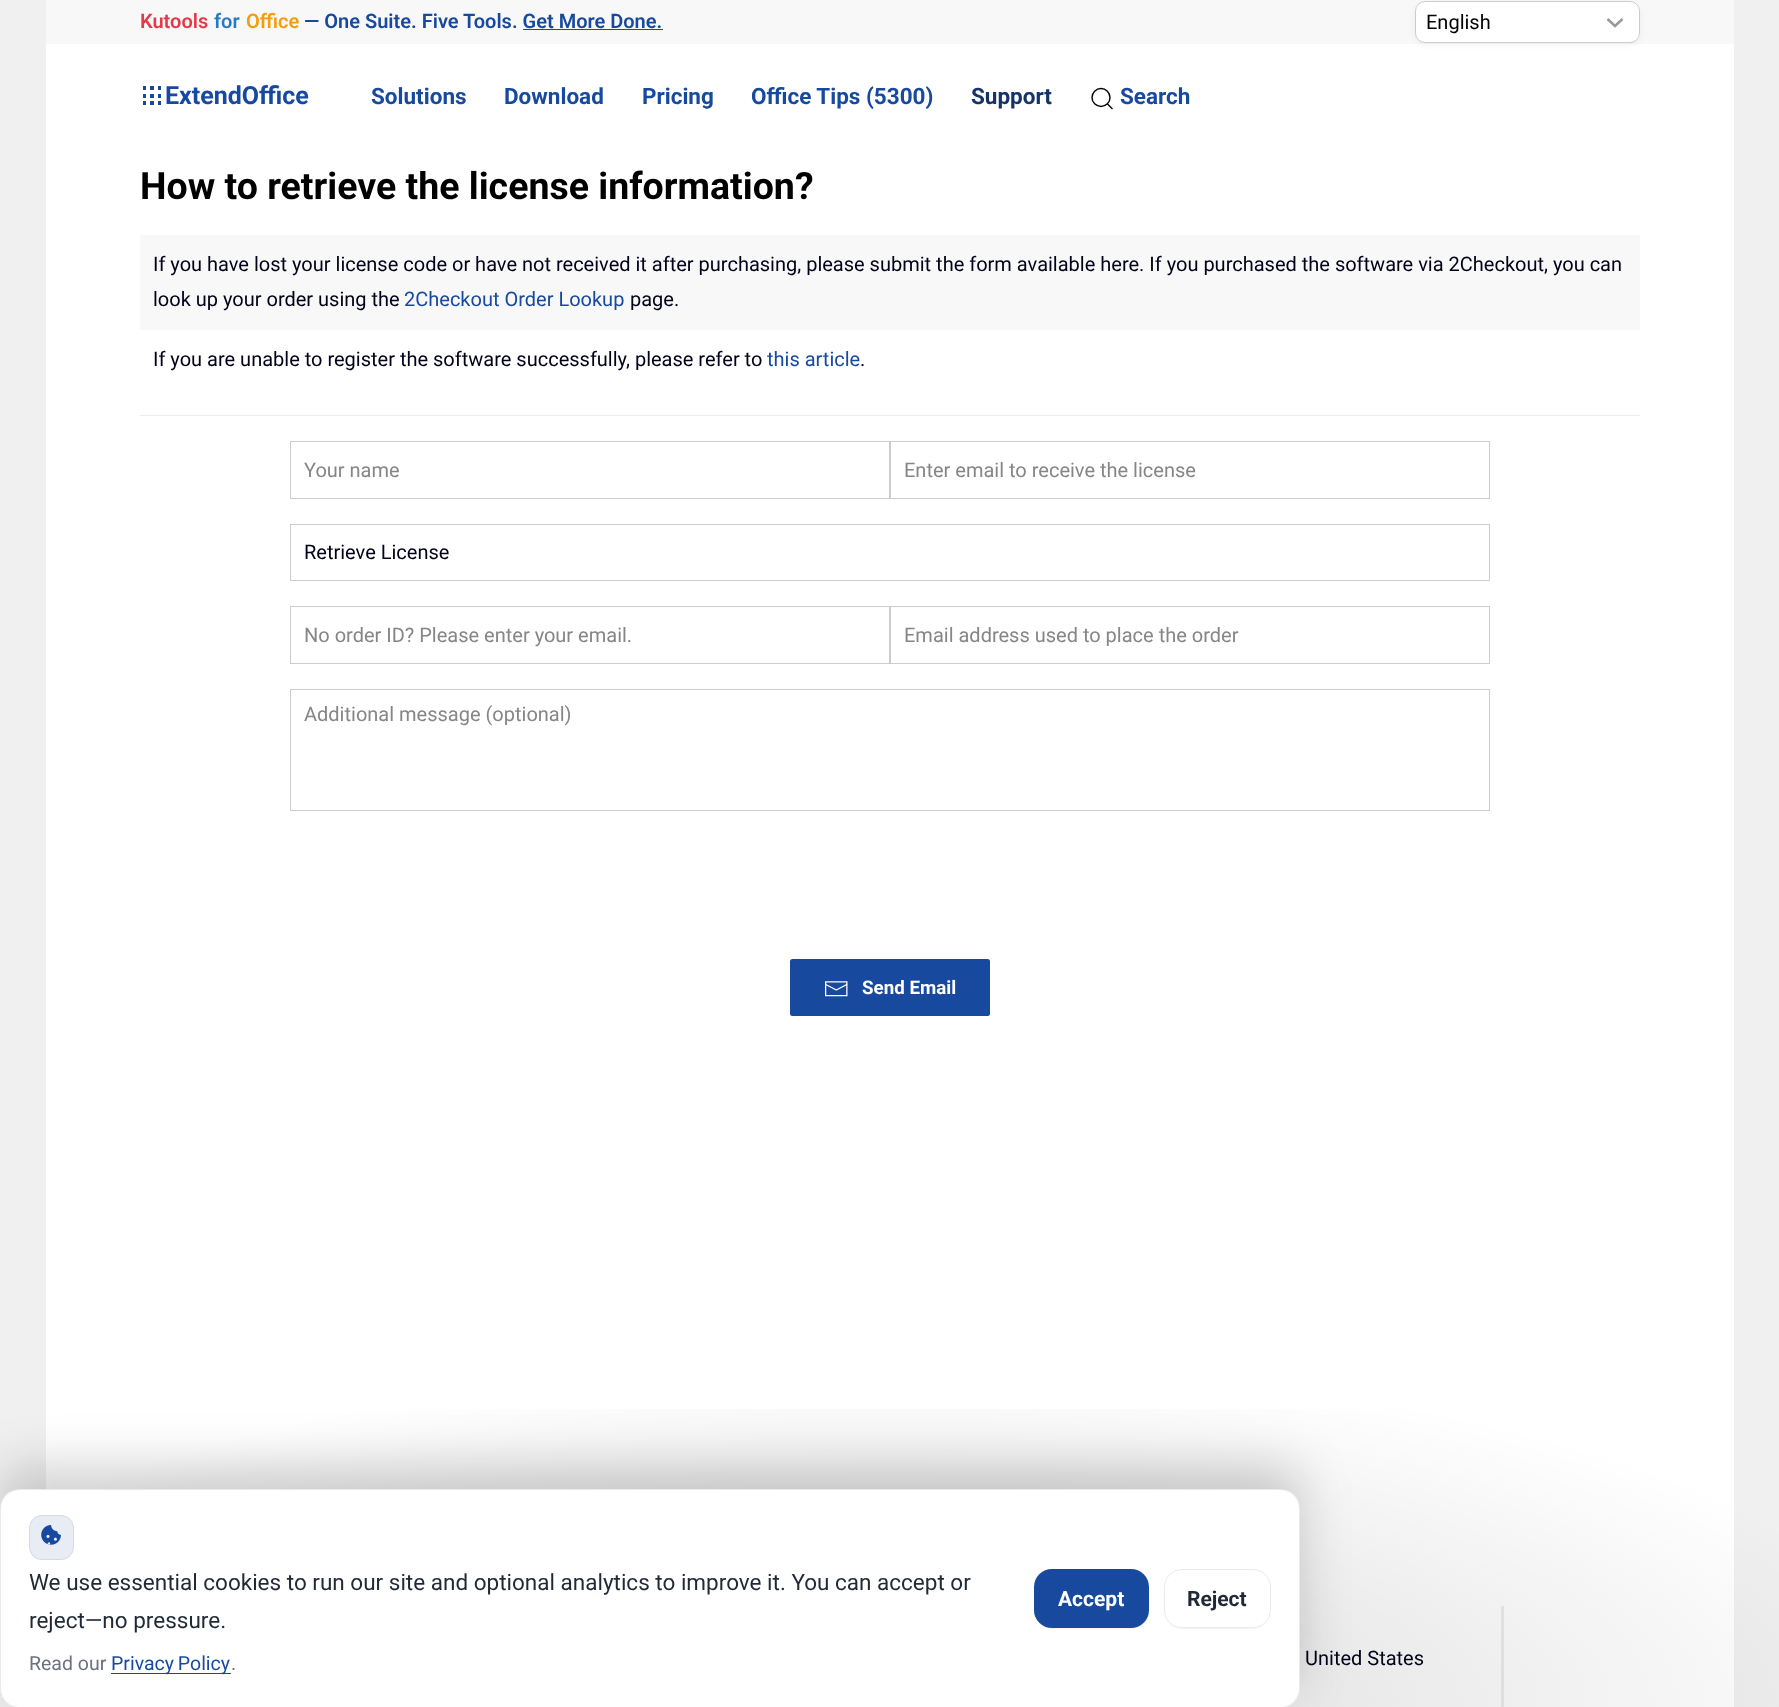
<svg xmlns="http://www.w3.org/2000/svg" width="1779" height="1707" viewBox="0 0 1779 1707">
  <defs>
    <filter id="blur1" x="-50%" y="-200%" width="200%" height="500%"><feGaussianBlur stdDeviation="3"/></filter>
    <radialGradient id="g1" gradientUnits="userSpaceOnUse" cx="0" cy="0" r="1" gradientTransform="matrix(1500 0 0 500 890 1708)"><stop offset="0" stop-color="#000000" stop-opacity="0.15"/><stop offset="0.7" stop-color="#000000" stop-opacity="0"/></radialGradient>
    <filter id="blur2" x="-50%" y="-200%" width="200%" height="500%"><feGaussianBlur stdDeviation="25"/></filter>
  </defs>
  <rect width="100%" height="100%" fill="#f0f0f0"/>
  <rect x="46" y="44" width="1688" height="1663" fill="#ffffff"/>
  <rect x="46" y="0" width="1688" height="44" fill="#f8f8f8"/>
  <text x="140" y="28" font-family="Roboto" font-size="20" font-weight="600" fill="#e63946">Kutools</text>
  <text x="214" y="28" font-family="Roboto" font-size="20" font-weight="600" fill="#2a79c4">for</text>
  <text x="246" y="28" font-family="Roboto" font-size="20" font-weight="600" fill="#f59e0b">Office</text>
  <text x="304" y="28" font-family="Roboto" font-size="20" font-weight="600" fill="#17499f">— One Suite. Five Tools. Get More Done.</text>
  <rect x="523" y="29" width="140" height="1" fill="#17499f"/>
  <rect x="1415" y="4" width="225" height="41" rx="10" fill="#000000" fill-opacity="0.05" filter="url(#blur1)"/>
  <rect x="1415" y="1" width="225" height="42" rx="10" fill="#ffffff"/>
  <path d="M1607.5 19L1615 26L1622.5 19" fill="none" stroke="#999999" stroke-width="2.5"/>
  <rect x="1415.5" y="1.5" width="224" height="41" rx="9.5" fill="none" stroke="#cccccc"/>
  <text x="1426" y="29" font-family="Roboto" font-size="20" fill="#000000">English</text>
  <image x="143" y="86" width="18" height="19" href="img1.png"/>
  <text x="165" y="104" font-family="Roboto" font-size="25" font-weight="bold" fill="#17499f">ExtendOffice</text>
  <text x="371" y="104" font-family="Roboto" font-size="22.5" font-weight="bold" fill="#17499f">Solutions</text>
  <text x="504" y="104" font-family="Roboto" font-size="22.5" font-weight="bold" fill="#17499f">Download</text>
  <text x="642" y="104" font-family="Roboto" font-size="22.5" font-weight="bold" fill="#17499f">Pricing</text>
  <text x="751" y="104" font-family="Roboto" font-size="22.5" font-weight="bold" fill="#17499f">Office Tips (5300)</text>
  <text x="971" y="104" font-family="Roboto" font-size="22.5" font-weight="bold" fill="#143469">Support</text>
  <circle cx="1101" cy="97.5" r="9" fill="none" stroke="#000000" stroke-width="1.4"/>
  <path d="M1107.5 104L1112.5 109Z" fill="none" stroke="#000000" stroke-width="1.4"/>
  <text x="1120" y="104" font-family="Roboto" font-size="22.5" font-weight="bold" fill="#17499f">Search</text>
  <text x="140" y="199" font-family="Roboto" font-size="37.5" font-weight="bold" fill="#000000">How to retrieve the license information?</text>
  <rect x="140" y="235" width="1500" height="95" fill="#f8f8f8"/>
  <text x="153" y="271" font-family="Roboto" font-size="20" fill="#000118">If you have lost your license code or have not received it after purchasing, please submit the form available here. If you purchased the software via 2Checkout, you can</text>
  <text x="153" y="306" font-family="Roboto" font-size="20" fill="#000118">look up your order using the</text>
  <text x="404" y="306" font-family="Roboto" font-size="20" fill="#17499f">2Checkout Order Lookup</text>
  <text x="630" y="306" font-family="Roboto" font-size="20" fill="#000118">page.</text>
  <text x="153" y="366" font-family="Roboto" font-size="20" fill="#000118">If you are unable to register the software successfully, please refer to</text>
  <text x="767" y="366" font-family="Roboto" font-size="20" fill="#17499f">this article</text>
  <text x="860" y="366" font-family="Roboto" font-size="20" fill="#000118">.</text>
  <rect x="140" y="415" width="1500" height="1" fill="#ededed"/>
  <rect x="290.5" y="441.5" width="599" height="57" fill="none" stroke="#cccccc"/>
  <text x="304" y="477" font-family="Roboto" font-size="20" fill="#868686">Your name</text>
  <rect x="890.5" y="441.5" width="599" height="57" fill="none" stroke="#cccccc"/>
  <text x="904" y="477" font-family="Roboto" font-size="20" fill="#868686">Enter email to receive the license</text>
  <rect x="290.5" y="524.5" width="1199" height="56" fill="none" stroke="#cccccc"/>
  <text x="304" y="559" font-family="Roboto" font-size="20" fill="#000118">Retrieve License</text>
  <rect x="290.5" y="606.5" width="599" height="57" fill="none" stroke="#cccccc"/>
  <text x="304" y="642" font-family="Roboto" font-size="20" fill="#868686">No order ID? Please enter your email.</text>
  <rect x="890.5" y="606.5" width="599" height="57" fill="none" stroke="#cccccc"/>
  <text x="904" y="642" font-family="Roboto" font-size="20" fill="#868686">Email address used to place the order</text>
  <rect x="290.5" y="689.5" width="1199" height="121" fill="none" stroke="#cccccc"/>
  <text x="304" y="721" font-family="Roboto" font-size="20" fill="#868686">Additional message (optional)</text>
  <rect x="790" y="959" width="200" height="57" rx="2.5" fill="#17499f"/>
  <image x="825" y="981" width="23" height="16" href="img2.png"/>
  <text x="862" y="994" font-family="Roboto" font-size="18.75" font-weight="bold" fill="#ffffff">Send Email</text>
  <rect x="1501" y="1606" width="3" height="101" fill="#ededed"/>
  <rect x="0" y="1409" width="1779" height="298" fill="url(#g1)"/>
  <rect x="0" y="1466" width="1300" height="219" rx="20" fill="#000000" fill-opacity="0.18" filter="url(#blur2)"/>
  <rect x="0" y="1489" width="1300" height="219" rx="20" fill="#ffffff"/>
  <rect x="0.5" y="1489.5" width="1299" height="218" rx="19.5" fill="none" stroke="#000000" stroke-opacity="0.08"/>
  <rect x="29" y="1515" width="45" height="45" rx="13" fill="#e8edf5"/>
  <rect x="29.5" y="1515.5" width="44" height="44" rx="12.5" fill="none" stroke="#000000" stroke-opacity="0.08"/>
  <image x="41" y="1525" width="20" height="20" href="img3.png"/>
  <text x="29" y="1590" font-family="Roboto" font-size="22.5" fill="#1f2937">We use essential cookies to run our site and optional analytics to improve it. You can accept or</text>
  <text x="29" y="1628" font-family="Roboto" font-size="22.5" fill="#1f2937">reject—no pressure.</text>
  <text x="29" y="1670" font-family="Roboto" font-size="19.5" fill="#6b7280">Read our</text>
  <rect x="111" y="1673" width="120" height="1" fill="#17499f"/>
  <text x="111" y="1670" word-spacing="-1" font-family="Roboto" font-size="19.5" fill="#17499f">Privacy Policy</text>
  <text x="231" y="1670" font-family="Roboto" font-size="19.5" fill="#6b7280">.</text>
  <path d="M1034 1615C1038 1631 1053 1629 1065 1629H1118C1130 1629 1145 1631 1149 1615V1603V1585V1598C1149 1610 1150 1624 1135 1627L1065 1628C1053 1628 1038 1629 1034 1615Z" fill="#f5f5f5"/>
  <rect x="1034" y="1569" width="115" height="59" rx="18" fill="#17499f"/>
  <text x="1058" y="1606" font-family="Roboto" font-size="21" font-weight="bold" fill="#ffffff">Accept</text>
  <path d="M1164 1615C1166 1623 1173 1629 1182 1629H1253C1262 1629 1269 1623 1271 1615C1269 1622 1262 1628 1254 1628H1181C1173 1628 1166 1622 1164 1615Z" fill="#f5f5f5"/>
  <rect x="1164.5" y="1569.5" width="106" height="58" rx="17.5" fill="none" stroke="#ebebeb"/>
  <text x="1187" y="1606" font-family="Roboto" font-size="21" font-weight="bold" fill="#1f2937">Reject</text>
  <text x="1305" y="1665" font-family="Roboto" font-size="20" fill="#000118">United States</text>
</svg>
